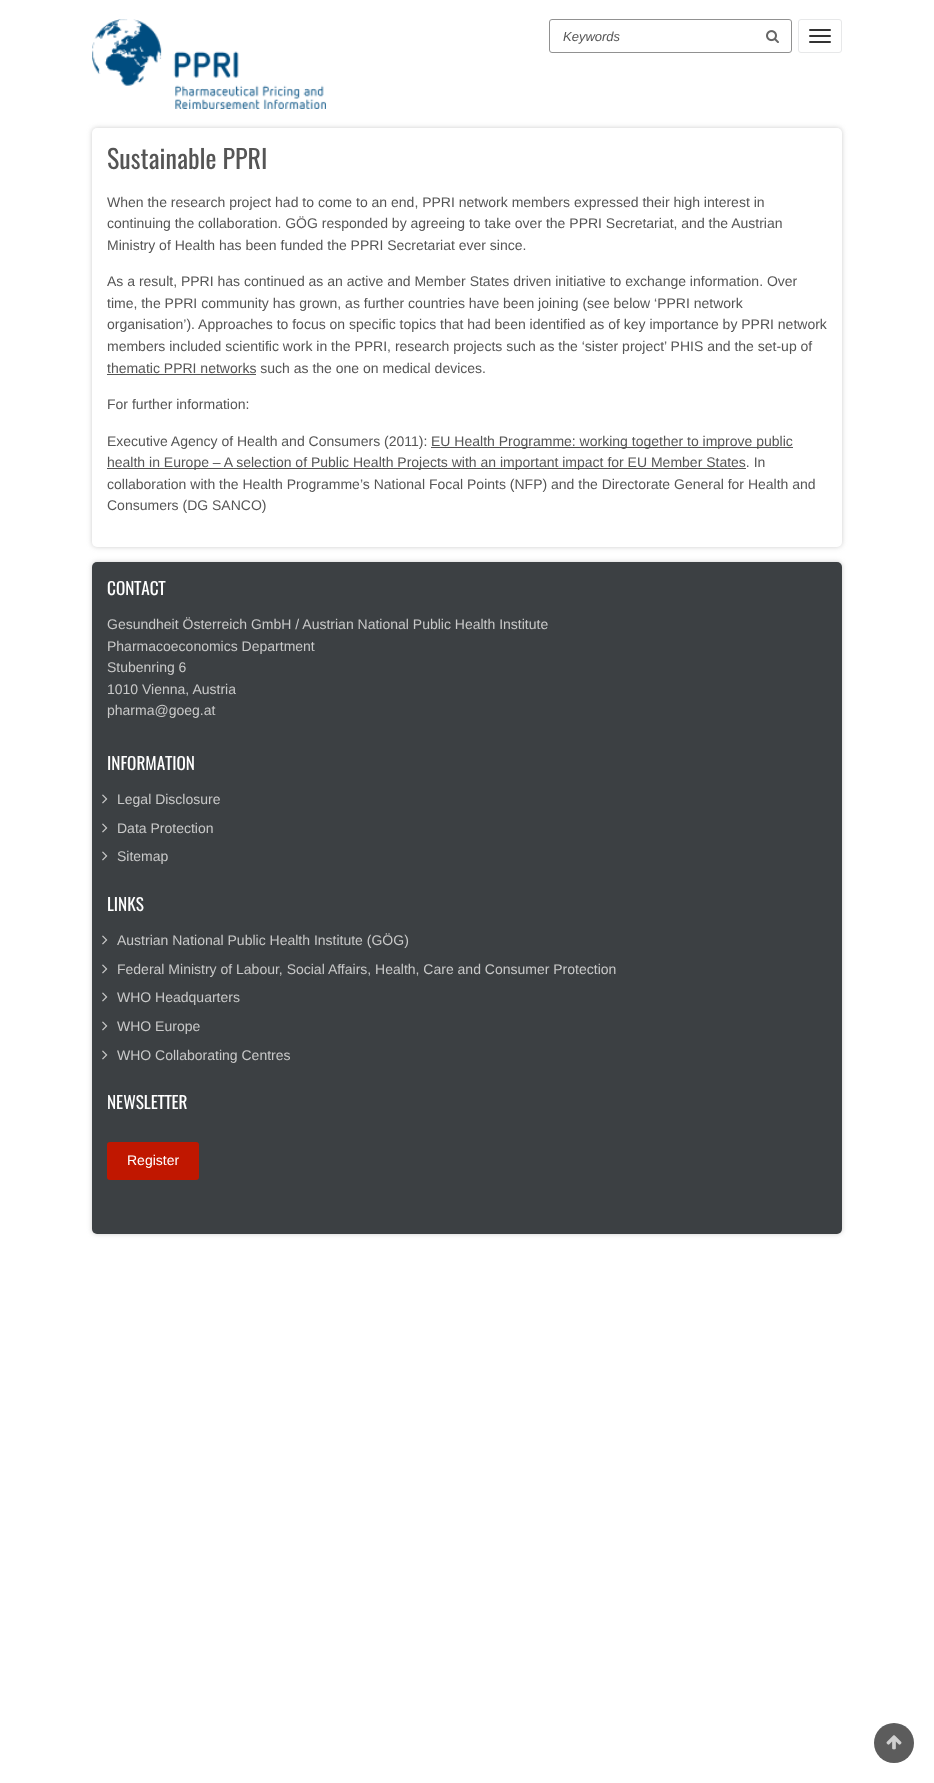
<svg xmlns="http://www.w3.org/2000/svg" width="934" height="1783" viewBox="0 0 934 1783">
  <defs>
    <filter id="blur1" x="-50%" y="-200%" width="200%" height="500%"><feGaussianBlur stdDeviation="2.5"/></filter>
  </defs>
  <rect width="100%" height="100%" fill="#ffffff"/>
  <image x="92" y="19" width="234" height="90" href="img1.png"/>
  <rect x="549.5" y="19.5" width="242" height="33" rx="2.5" fill="none" stroke="#919191"/>
  <text x="563" y="41" font-family="Liberation Sans" font-size="13" font-style="italic" fill="#555555">Keywords</text>
  <image x="766" y="30" width="13" height="13" href="img2.png"/>
  <rect x="798.5" y="19.5" width="43" height="33" rx="2.5" fill="none" stroke="#e7e8e9"/>
  <rect x="809" y="29" width="22" height="2" rx="1" fill="#333333"/>
  <rect x="809" y="35" width="22" height="2" rx="1" fill="#333333"/>
  <rect x="809" y="41" width="22" height="2" rx="1" fill="#333333"/>
  <rect x="92" y="128" width="750" height="419" rx="5" fill="#cccccc" filter="url(#blur1)"/>
  <rect x="92" y="128" width="750" height="419" rx="5" fill="#ffffff"/>
  <text x="107" y="169" font-family="Oswald" font-size="26" fill="#555555">Sustainable PPRI</text>
  <text x="107" y="207" font-family="Liberation Sans" font-size="14" fill="#555555">When the research project had to come to an end, PPRI network members expressed their high interest in</text>
  <text x="107" y="228" font-family="Liberation Sans" font-size="14" fill="#555555">continuing the collaboration. GÖG responded by agreeing to take over the PPRI Secretariat, and the Austrian</text>
  <text x="107" y="250" font-family="Liberation Sans" font-size="14" fill="#555555">Ministry of Health has been funded the PPRI Secretariat ever since.</text>
  <text x="107" y="286" font-family="Liberation Sans" font-size="14" fill="#555555">As a result, PPRI has continued as an active and Member States driven initiative to exchange information. Over</text>
  <text x="107" y="308" font-family="Liberation Sans" font-size="14" fill="#555555">time, the PPRI community has grown, as further countries have been joining (see below ‘PPRI network</text>
  <text x="107" y="329" font-family="Liberation Sans" font-size="14" fill="#555555">organisation’). Approaches to focus on specific topics that had been identified as of key importance by PPRI network</text>
  <text x="107" y="351" font-family="Liberation Sans" font-size="14" fill="#555555">members included scientific work in the PPRI, research projects such as the ‘sister project’ PHIS and the set-up of</text>
  <text x="107" y="373" font-family="Liberation Sans" font-size="14" fill="#555555">thematic PPRI networks such as the one on medical devices.</text>
  <rect x="107" y="374" width="149" height="1" fill="#555555"/>
  <text x="107" y="409" font-family="Liberation Sans" font-size="14" fill="#555555">For further information:</text>
  <text x="107" y="446" font-family="Liberation Sans" font-size="14" fill="#555555">Executive Agency of Health and Consumers (2011):</text>
  <rect x="431" y="447" width="362" height="1" fill="#555555"/>
  <text x="431" y="446" font-family="Liberation Sans" font-size="14" fill="#555555">EU Health Programme: working together to improve public</text>
  <rect x="107" y="468" width="639" height="1" fill="#555555"/>
  <text x="107" y="467" font-family="Liberation Sans" font-size="14" fill="#555555">health in Europe – A selection of Public Health Projects with an important impact for EU Member States. In</text>
  <text x="107" y="489" font-family="Liberation Sans" font-size="14" fill="#555555">collaboration with the Health Programme’s National Focal Points (NFP) and the Directorate General for Health and</text>
  <text x="107" y="510" font-family="Liberation Sans" font-size="14" fill="#555555">Consumers (DG SANCO)</text>
  <rect x="92" y="562" width="750" height="672" rx="5" fill="#cccccc" filter="url(#blur1)"/>
  <rect x="92" y="562" width="750" height="672" rx="5" fill="#3c4043"/>
  <text x="107" y="595" font-family="Oswald" font-size="17.25" fill="#ffffff">CONTACT</text>
  <text x="107" y="629" font-family="Liberation Sans" font-size="14" fill="#c9c9c9">Gesundheit Österreich GmbH / Austrian National Public Health Institute</text>
  <text x="107" y="651" font-family="Liberation Sans" font-size="14" fill="#c9c9c9">Pharmacoeconomics Department</text>
  <text x="107" y="672" font-family="Liberation Sans" font-size="14" fill="#c9c9c9">Stubenring 6</text>
  <text x="107" y="694" font-family="Liberation Sans" font-size="14" fill="#c9c9c9">1010 Vienna, Austria</text>
  <text x="107" y="715" font-family="Liberation Sans" font-size="14" fill="#c9c9c9">pharma@goeg.at</text>
  <text x="107" y="770" font-family="Oswald" font-size="17.25" fill="#ffffff">INFORMATION</text>
  <image x="102" y="794" width="6" height="10" href="img3.png"/>
  <text x="117" y="804" font-family="Liberation Sans" font-size="14" fill="#c9c9c9">Legal Disclosure</text>
  <image x="102" y="823" width="6" height="10" href="img3.png"/>
  <text x="117" y="833" font-family="Liberation Sans" font-size="14" fill="#c9c9c9">Data Protection</text>
  <image x="102" y="851" width="6" height="10" href="img3.png"/>
  <text x="117" y="861" font-family="Liberation Sans" font-size="14" fill="#c9c9c9">Sitemap</text>
  <text x="107" y="911" font-family="Oswald" font-size="17.25" fill="#ffffff">LINKS</text>
  <image x="102" y="935" width="6" height="10" href="img3.png"/>
  <text x="117" y="945" font-family="Liberation Sans" font-size="14" fill="#c9c9c9">Austrian National Public Health Institute (GÖG)</text>
  <image x="102" y="964" width="6" height="10" href="img3.png"/>
  <text x="117" y="974" font-family="Liberation Sans" font-size="14" fill="#c9c9c9">Federal Ministry of Labour, Social Affairs, Health, Care and Consumer Protection</text>
  <image x="102" y="992" width="6" height="10" href="img3.png"/>
  <text x="117" y="1002" font-family="Liberation Sans" font-size="14" fill="#c9c9c9">WHO Headquarters</text>
  <image x="102" y="1021" width="6" height="10" href="img3.png"/>
  <text x="117" y="1031" font-family="Liberation Sans" font-size="14" fill="#c9c9c9">WHO Europe</text>
  <image x="102" y="1050" width="6" height="10" href="img3.png"/>
  <text x="117" y="1060" font-family="Liberation Sans" font-size="14" fill="#c9c9c9">WHO Collaborating Centres</text>
  <text x="107" y="1109" font-family="Oswald" font-size="17.25" fill="#ffffff">NEWSLETTER</text>
  <rect x="107" y="1142" width="92" height="38" rx="3" fill="#c01700"/>
  <text x="127" y="1165" font-family="Liberation Sans" font-size="14" fill="#ffffff">Register</text>
  <circle cx="894" cy="1743" r="20" fill="#5c5c5c"/>
  <image x="886" y="1735" width="16" height="15" href="img4.png"/>
</svg>
